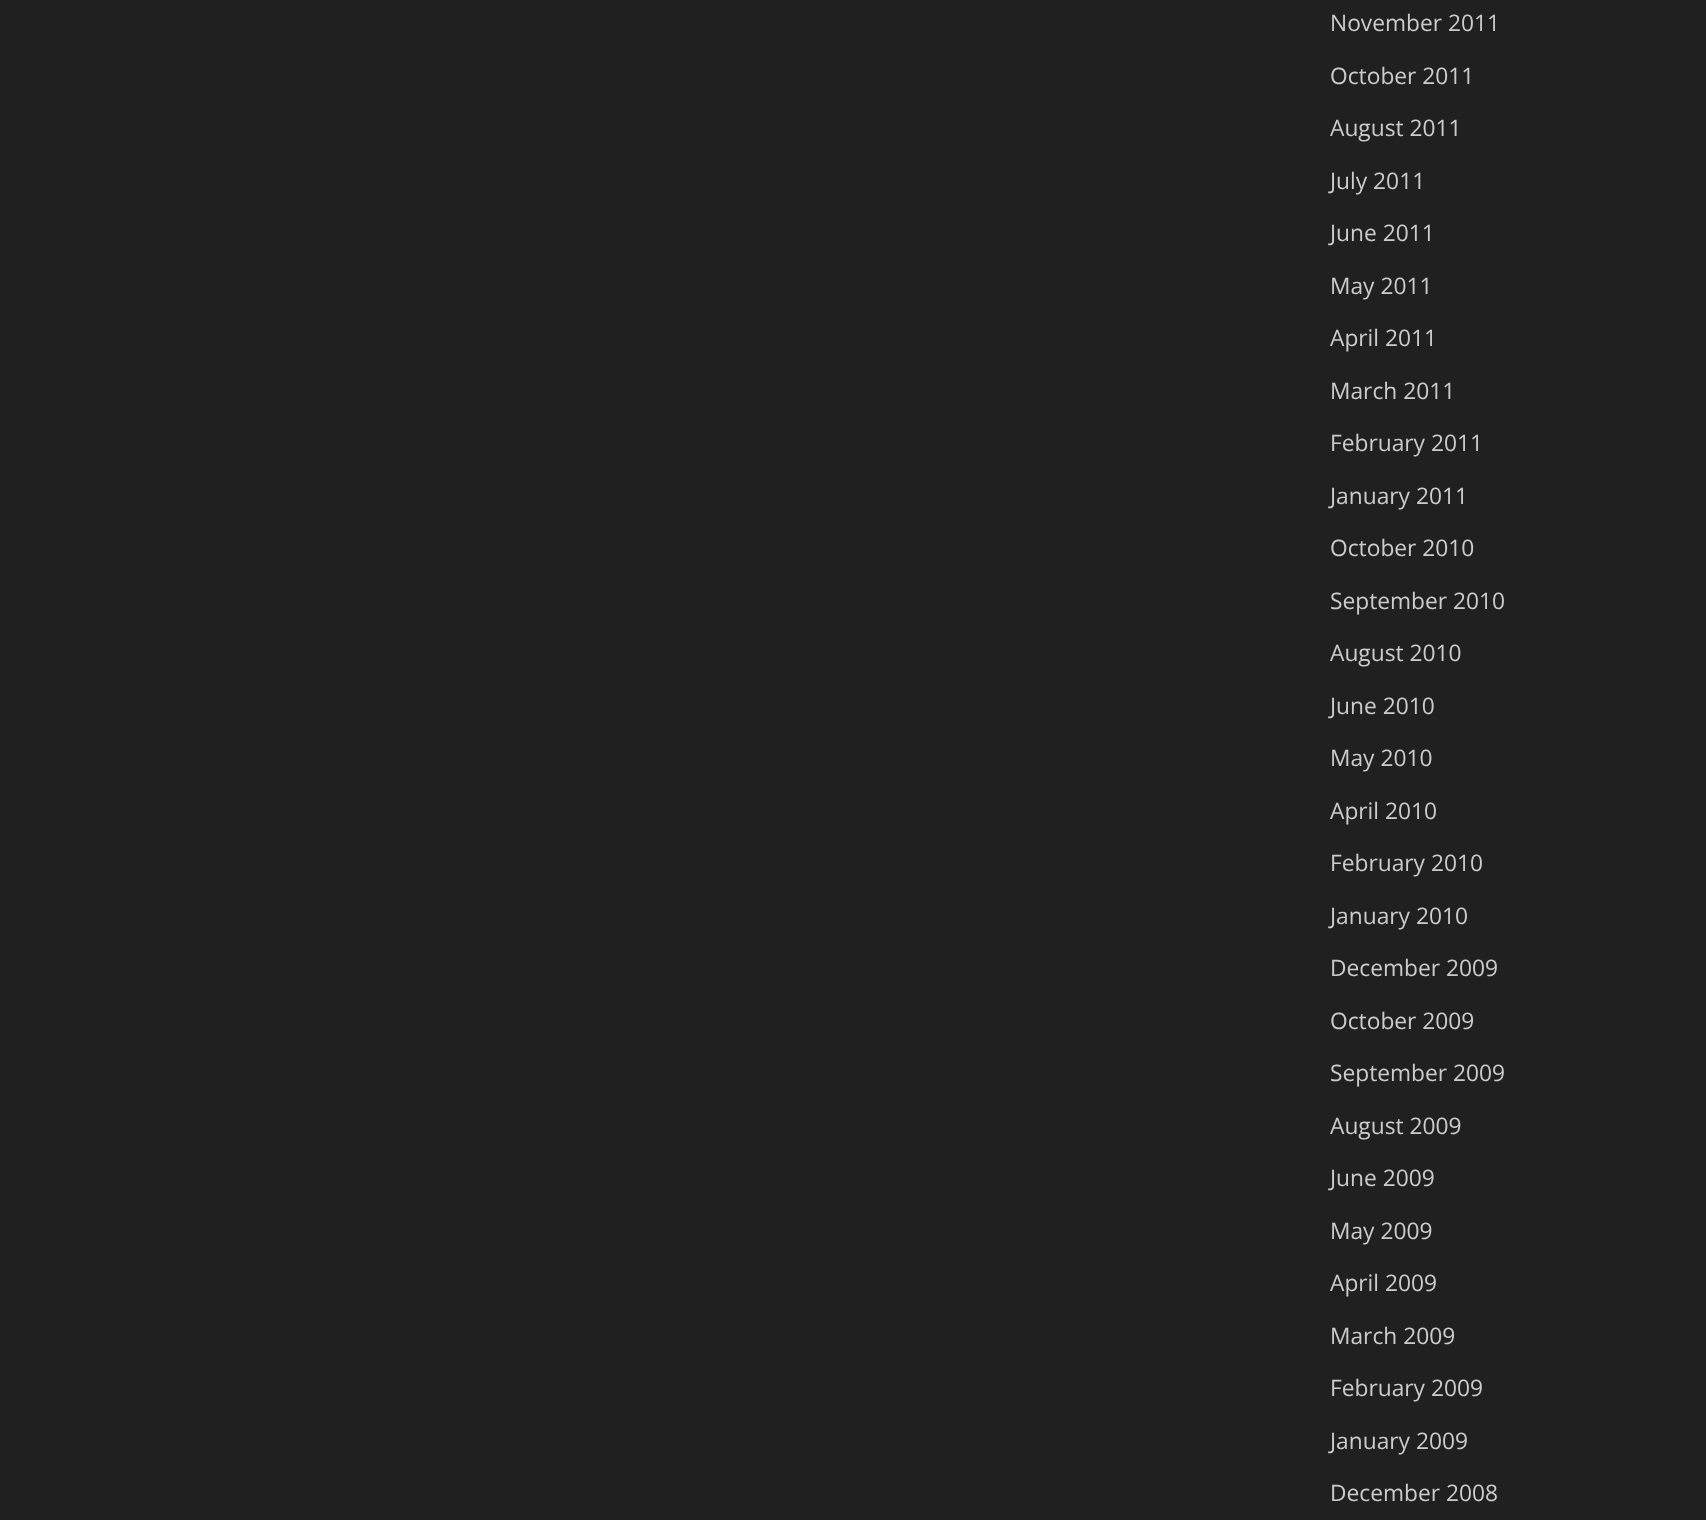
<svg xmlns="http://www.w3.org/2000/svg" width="1706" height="1520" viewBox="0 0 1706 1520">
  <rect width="100%" height="100%" fill="#202020"/>
  <text x="1330" y="31" font-family="Open Sans" font-size="22.75" fill="#cccccc">November 2011</text>
  <text x="1330" y="84" font-family="Open Sans" font-size="22.75" fill="#cccccc">October 2011</text>
  <text x="1330" y="136" font-family="Open Sans" font-size="22.75" fill="#cccccc">August 2011</text>
  <text x="1330" y="189" font-family="Open Sans" font-size="22.75" fill="#cccccc">July 2011</text>
  <text x="1330" y="241" font-family="Open Sans" font-size="22.75" fill="#cccccc">June 2011</text>
  <text x="1330" y="294" font-family="Open Sans" font-size="22.75" fill="#cccccc">May 2011</text>
  <text x="1330" y="346" font-family="Open Sans" font-size="22.75" fill="#cccccc">April 2011</text>
  <text x="1330" y="399" font-family="Open Sans" font-size="22.75" fill="#cccccc">March 2011</text>
  <text x="1330" y="451" font-family="Open Sans" font-size="22.75" fill="#cccccc">February 2011</text>
  <text x="1330" y="504" font-family="Open Sans" font-size="22.75" fill="#cccccc">January 2011</text>
  <text x="1330" y="556" font-family="Open Sans" font-size="22.75" fill="#cccccc">October 2010</text>
  <text x="1330" y="609" font-family="Open Sans" font-size="22.75" fill="#cccccc">September 2010</text>
  <text x="1330" y="661" font-family="Open Sans" font-size="22.75" fill="#cccccc">August 2010</text>
  <text x="1330" y="714" font-family="Open Sans" font-size="22.75" fill="#cccccc">June 2010</text>
  <text x="1330" y="766" font-family="Open Sans" font-size="22.75" fill="#cccccc">May 2010</text>
  <text x="1330" y="819" font-family="Open Sans" font-size="22.75" fill="#cccccc">April 2010</text>
  <text x="1330" y="871" font-family="Open Sans" font-size="22.75" fill="#cccccc">February 2010</text>
  <text x="1330" y="924" font-family="Open Sans" font-size="22.75" fill="#cccccc">January 2010</text>
  <text x="1330" y="976" font-family="Open Sans" font-size="22.75" fill="#cccccc">December 2009</text>
  <text x="1330" y="1029" font-family="Open Sans" font-size="22.75" fill="#cccccc">October 2009</text>
  <text x="1330" y="1081" font-family="Open Sans" font-size="22.75" fill="#cccccc">September 2009</text>
  <text x="1330" y="1134" font-family="Open Sans" font-size="22.75" fill="#cccccc">August 2009</text>
  <text x="1330" y="1186" font-family="Open Sans" font-size="22.75" fill="#cccccc">June 2009</text>
  <text x="1330" y="1239" font-family="Open Sans" font-size="22.75" fill="#cccccc">May 2009</text>
  <text x="1330" y="1291" font-family="Open Sans" font-size="22.75" fill="#cccccc">April 2009</text>
  <text x="1330" y="1344" font-family="Open Sans" font-size="22.75" fill="#cccccc">March 2009</text>
  <text x="1330" y="1396" font-family="Open Sans" font-size="22.75" fill="#cccccc">February 2009</text>
  <text x="1330" y="1449" font-family="Open Sans" font-size="22.75" fill="#cccccc">January 2009</text>
  <text x="1330" y="1501" font-family="Open Sans" font-size="22.75" fill="#cccccc">December 2008</text>
</svg>
